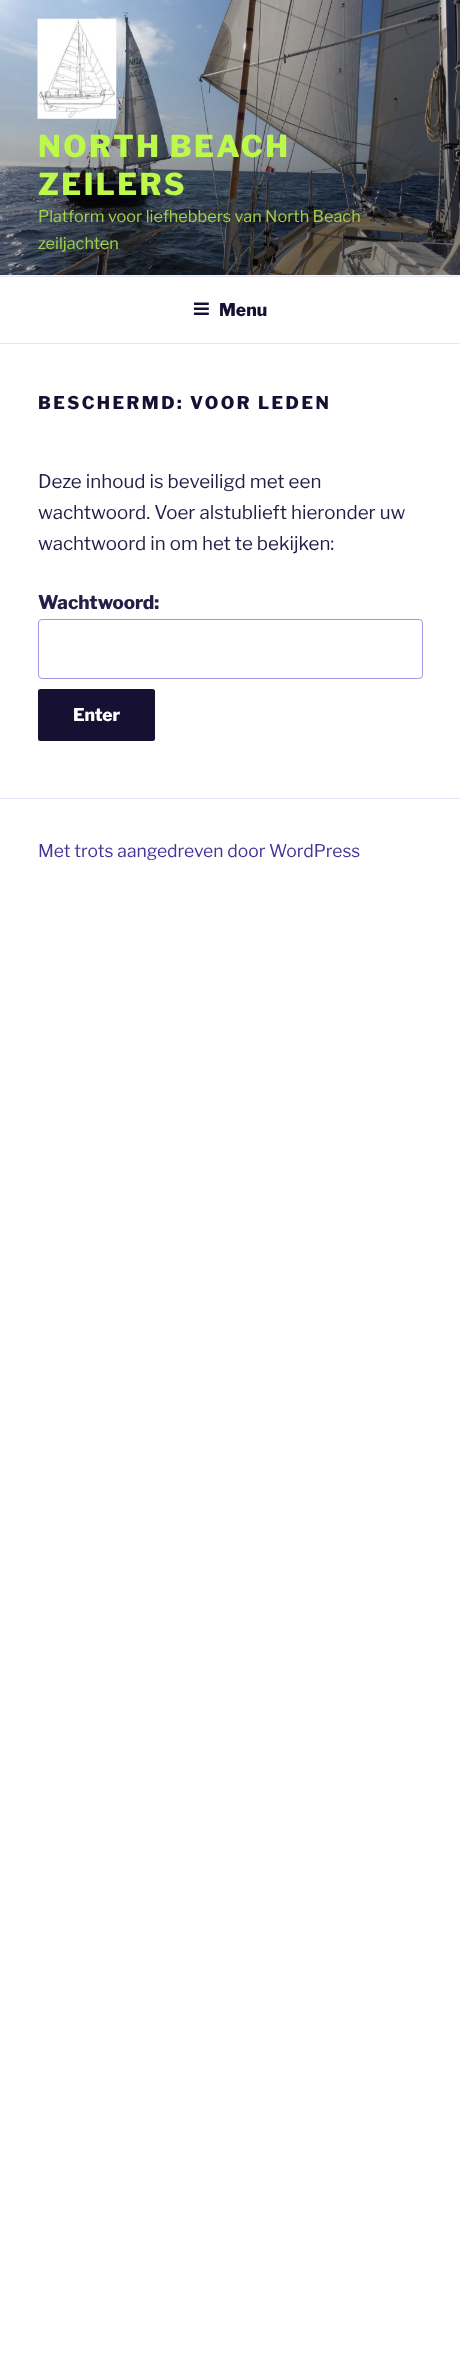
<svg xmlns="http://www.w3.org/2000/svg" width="460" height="2363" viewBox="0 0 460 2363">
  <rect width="100%" height="100%" fill="#ffffff"/>
  <rect x="0" y="275" width="460" height="1" fill="#f8f7fc"/>
  <image x="0" y="0" width="460" height="275" href="img1.png"/>
  <image x="37" y="18" width="80" height="101" href="img2.png"/>
  <text x="38" y="157" font-family="Libre Franklin" font-size="30" font-weight="100" letter-spacing="2.4" fill="#bdf94d">NORTH BEACH</text>
  <text x="38" y="195" font-family="Libre Franklin" font-size="30" font-weight="100" letter-spacing="2.4" fill="#bdf94d">ZEILERS</text>
  <text x="38" y="222" font-family="'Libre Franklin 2'" font-size="16.25" font-weight="100" fill="#a1d24a">Platform voor liefhebbers van North Beach</text>
  <text x="38" y="249" font-family="'Libre Franklin 2'" font-size="16.25" font-weight="100" fill="#a1d24a">zeiljachten</text>
  <rect x="0" y="276" width="460" height="1" fill="#e7e4f6"/>
  <rect x="0" y="343" width="460" height="1" fill="#e7e4f6"/>
  <image x="193" y="302" width="16" height="13" href="img3.png"/>
  <text x="219" y="316" font-family="Libre Franklin" font-size="17.5" font-weight="100" fill="#161132">Menu</text>
  <text x="38" y="409" font-family="Libre Franklin" font-size="17.5" font-weight="100" letter-spacing="2.45" fill="#161132">BESCHERMD: VOOR LEDEN</text>
  <text x="38" y="488" font-family="'Libre Franklin 2'" font-size="18.75" font-weight="100" fill="#251f47">Deze inhoud is beveiligd met een</text>
  <text x="38" y="519" font-family="'Libre Franklin 2'" font-size="18.75" font-weight="100" fill="#251f47">wachtwoord. Voer alstublieft hieronder uw</text>
  <text x="38" y="550" font-family="'Libre Franklin 2'" font-size="18.75" font-weight="100" fill="#251f47">wachtwoord in om het te bekijken:</text>
  <text x="38" y="609" font-family="Libre Franklin" font-size="18.75" font-weight="100" fill="#251f47">Wachtwoord:</text>
  <rect x="38.5" y="619.5" width="384" height="59" rx="3.5" fill="none" stroke="#a398dd"/>
  <rect x="38" y="689" width="117" height="52" rx="2.5" fill="#161132"/>
  <text x="73" y="721" font-family="Libre Franklin" font-size="17.5" font-weight="100" fill="#ffffff">Enter</text>
  <rect x="0" y="798" width="460" height="1" fill="#e7e4f6"/>
  <text x="38" y="857" font-family="'Libre Franklin 2'" font-size="17.5" font-weight="100" fill="#443399">Met trots aangedreven door WordPress</text>
</svg>
